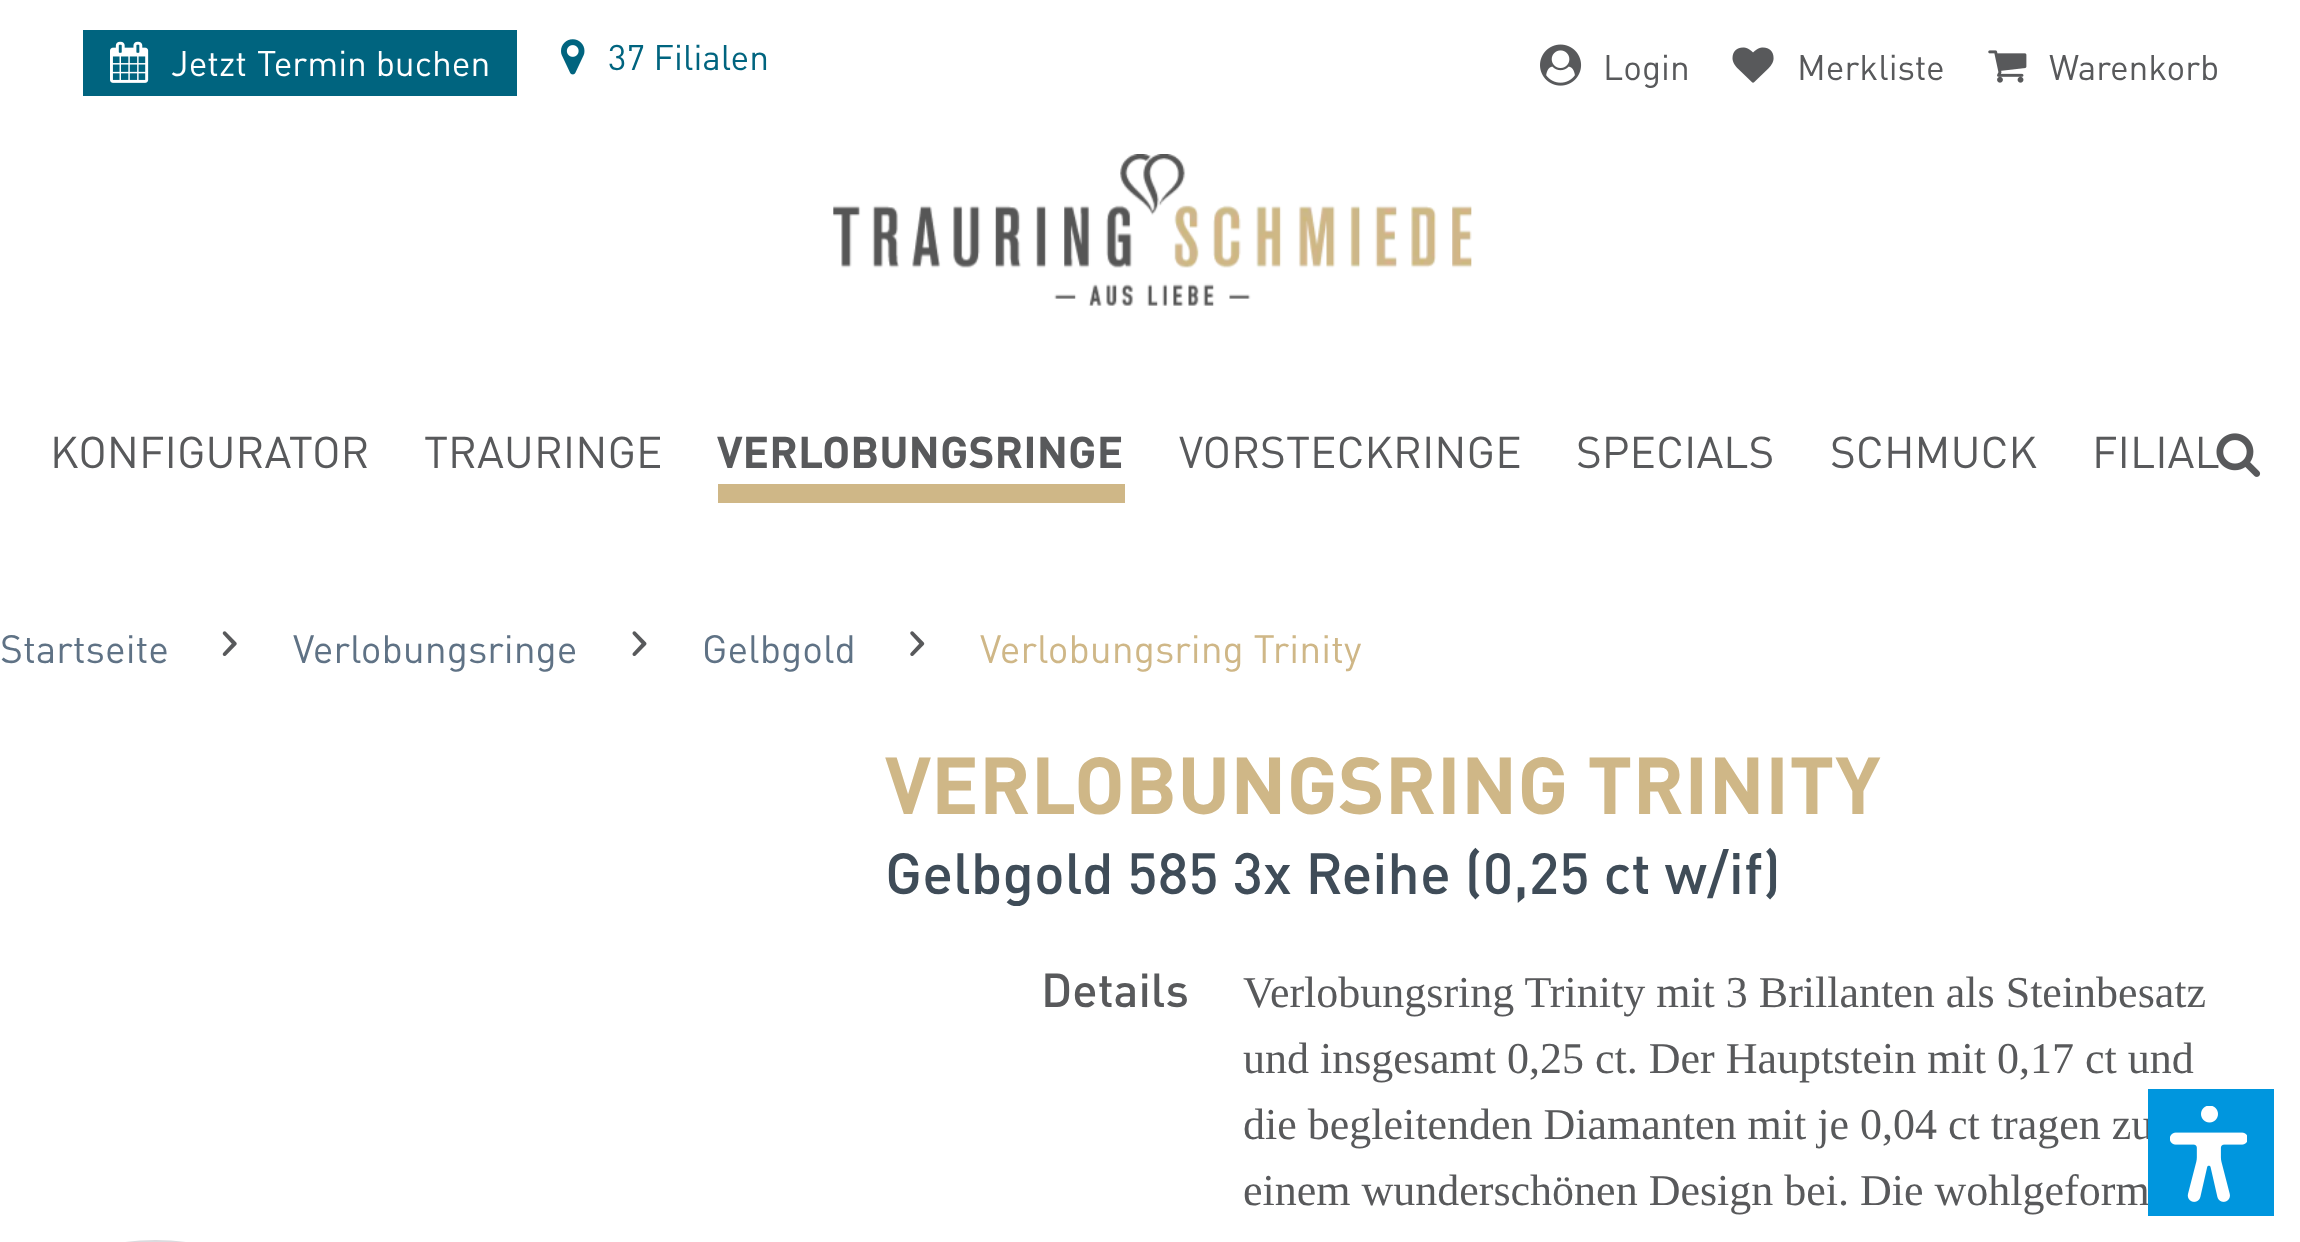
<svg xmlns="http://www.w3.org/2000/svg" width="2300" height="1242" viewBox="0 0 2300 1242">
  <rect width="100%" height="100%" fill="#ffffff"/>
  <rect x="83" y="30" width="434" height="66" fill="#00647f"/>
  <image x="110" y="41" width="39" height="42" href="img1.png"/>
  <text x="171" y="76" font-family="DIN" font-size="35.25" fill="#ffffff">Jetzt</text>
  <text x="257" y="76" font-family="DIN" font-size="35.25" fill="#ffffff">Termin buchen</text>
  <image x="561" y="39" width="24" height="36" href="img2.png"/>
  <text x="608" y="70" font-family="DIN" font-size="35.25" fill="#00647f">37 Filialen</text>
  <image x="1540" y="44" width="42" height="42" href="img3.png"/>
  <text x="1603" y="80" font-family="DIN" font-size="35.25" fill="#58595b">Login</text>
  <image x="1732" y="47" width="42" height="36" href="img4.png"/>
  <text x="1797" y="80" font-family="DIN" font-size="35.25" fill="#58595b">Merkliste</text>
  <image x="1988" y="50" width="39" height="33" href="img5.png"/>
  <text x="2049" y="80" font-family="DIN" font-size="35.25" fill="#58595b">Warenkorb</text>
  <image x="833" y="154" width="639" height="152" href="img6.png"/>
  <text x="50" y="468" font-family="DIN" font-size="44" fill="#58595b">KONFIGURATOR</text>
  <text x="424" y="468" font-family="DIN" font-size="44" fill="#58595b">TRAURINGE</text>
  <rect x="718" y="484" width="407" height="19" fill="#cfb787"/>
  <text x="717" y="468" font-family="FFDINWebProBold" font-size="44" fill="#58595b">VERLOBUNGSRINGE</text>
  <text x="1179" y="468" font-family="DIN" font-size="44" fill="#58595b">VORSTECKRINGE</text>
  <text x="1576" y="468" font-family="DIN" font-size="44" fill="#58595b">SPECIALS</text>
  <text x="1830" y="468" font-family="DIN" font-size="44" fill="#58595b">SCHMUCK</text>
  <text x="2092" y="468" font-family="DIN" font-size="44" fill="#58595b">FILIAL</text>
  <image x="2216" y="433" width="45" height="44" href="img7.png"/>
  <text x="0" y="663" font-family="DIN" font-size="39.1" fill="#5f7285">Startseite</text>
  <image x="222" y="631" width="15" height="25" href="img8.png"/>
  <text x="293" y="663" font-family="DIN" font-size="39.1" fill="#5f7285">Verlobungsringe</text>
  <image x="632" y="631" width="15" height="25" href="img9.png"/>
  <text x="702" y="663" font-family="DIN" font-size="39.1" fill="#5f7285">Gelbgold</text>
  <image x="910" y="631" width="15" height="25" href="img10.png"/>
  <text x="980" y="663" font-family="DIN" font-size="39.1" fill="#cfb787">Verlobungsring Trinity</text>
  <text x="885" y="814" font-family="FFDINWebProBold" font-size="79.25" fill="#cfb787">VERLOBUNGSRING TRINITY</text>
  <text x="885" y="894" font-family="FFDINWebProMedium" font-size="57.25" fill="#3f4c58">Gelbgold 585 3x Reihe (0,25 ct w/if)</text>
  <text x="1041" y="1007" font-family="FFDINWebProMedium" font-size="47" fill="#58595b">Details</text>
  <text x="1243" y="1007" font-family="Liberation Serif" font-size="44" fill="#58595b">Verlobungsring Trinity mit 3 Brillanten als Steinbesatz</text>
  <text x="1243" y="1073" font-family="Liberation Serif" font-size="44" fill="#58595b">und insgesamt 0,25 ct. Der Hauptstein mit 0,17 ct und</text>
  <text x="1243" y="1139" font-family="Liberation Serif" font-size="44" fill="#58595b">die begleitenden Diamanten mit je 0,04 ct tragen zu</text>
  <text x="1243" y="1205" font-family="Liberation Serif" font-size="44" fill="#58595b">einem wunderschönen Design bei. Die wohlgeform</text>
  <rect x="2148" y="1089" width="126" height="127" fill="#0096de"/>
  <image x="2170" y="1106" width="77" height="96" href="img11.png"/>
  <rect x="42.5" y="1241.5" width="226" height="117" rx="113" fill="none" stroke="#dbdade" stroke-width="3"/>
</svg>
